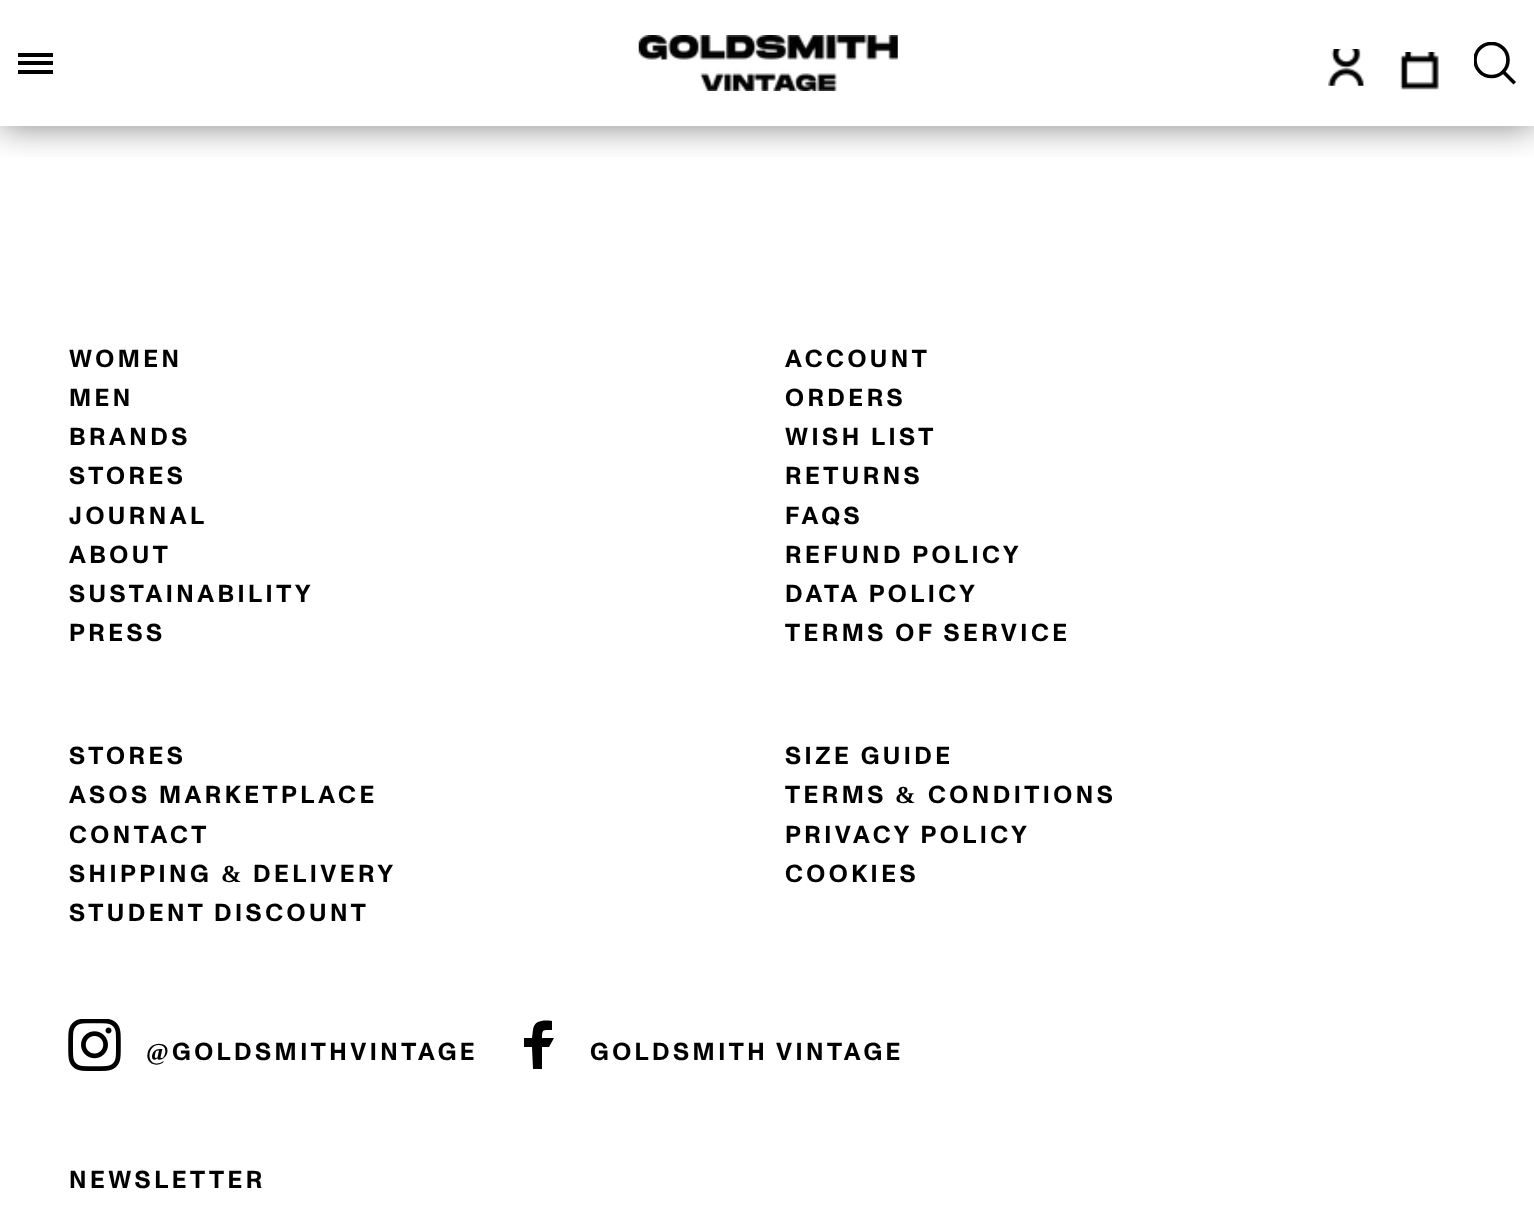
<svg xmlns="http://www.w3.org/2000/svg" width="1534" height="1210" viewBox="0 0 1534 1210">
  <defs>
    <clipPath id="clip1"><rect x="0" y="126" width="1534" height="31"/></clipPath>
    <filter id="blur1" x="-50%" y="-200%" width="200%" height="500%"><feGaussianBlur stdDeviation="17.5"/></filter>
    <clipPath id="clip2"><rect x="1474" y="42" width="43" height="44"/></clipPath>
  </defs>
  <rect width="100%" height="100%" fill="#ffffff"/>
  <g clip-path="url(#clip1)">
    <rect x="0" y="0" width="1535" height="126" fill="#000000" fill-opacity="0.5" filter="url(#blur1)"/>
  </g>
  <rect x="18" y="53" width="35" height="4" fill="#000000"/>
  <rect x="18" y="61" width="35" height="4" fill="#000000"/>
  <rect x="18" y="70" width="35" height="4" fill="#000000"/>
  <image x="638" y="35" width="260" height="56" href="img1.png"/>
  <image x="1328" y="49" width="37" height="37" href="img2.png"/>
  <image x="1400" y="52" width="39" height="38" href="img3.png"/>
  <path d="M1513.5 82L1503.5 72" fill="none" stroke="#000000" stroke-width="3.6" stroke-linecap="square"/>
  <g clip-path="url(#clip2)">
    <circle cx="1491.5" cy="60" r="16.5" fill="none" stroke="#000000" stroke-width="3.6"/>
  </g>
  <text x="69" y="367" font-family="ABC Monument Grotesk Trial" font-size="24.5" font-weight="bold" letter-spacing="3.5" fill="#000000">WOMEN</text>
  <text x="69" y="406" font-family="ABC Monument Grotesk Trial" font-size="24.5" font-weight="bold" letter-spacing="3.5" fill="#000000">MEN</text>
  <text x="69" y="445" font-family="ABC Monument Grotesk Trial" font-size="24.5" font-weight="bold" letter-spacing="3.5" fill="#000000">BRANDS</text>
  <text x="69" y="484" font-family="ABC Monument Grotesk Trial" font-size="24.5" font-weight="bold" letter-spacing="3.5" fill="#000000">STORES</text>
  <text x="69" y="524" font-family="ABC Monument Grotesk Trial" font-size="24.5" font-weight="bold" letter-spacing="3.5" fill="#000000">JOURNAL</text>
  <text x="69" y="563" font-family="ABC Monument Grotesk Trial" font-size="24.5" font-weight="bold" letter-spacing="3.5" fill="#000000">ABOUT</text>
  <text x="69" y="602" font-family="ABC Monument Grotesk Trial" font-size="24.5" font-weight="bold" letter-spacing="3.5" fill="#000000">SUSTAINABILITY</text>
  <text x="69" y="641" font-family="ABC Monument Grotesk Trial" font-size="24.5" font-weight="bold" letter-spacing="3.5" fill="#000000">PRESS</text>
  <text x="785" y="367" font-family="ABC Monument Grotesk Trial" font-size="24.5" font-weight="bold" letter-spacing="3.5" fill="#000000">ACCOUNT</text>
  <text x="785" y="406" font-family="ABC Monument Grotesk Trial" font-size="24.5" font-weight="bold" letter-spacing="3.5" fill="#000000">ORDERS</text>
  <text x="785" y="445" font-family="ABC Monument Grotesk Trial" font-size="24.5" font-weight="bold" letter-spacing="3.5" fill="#000000">WISH LIST</text>
  <text x="785" y="484" font-family="ABC Monument Grotesk Trial" font-size="24.5" font-weight="bold" letter-spacing="3.5" fill="#000000">RETURNS</text>
  <text x="785" y="524" font-family="ABC Monument Grotesk Trial" font-size="24.5" font-weight="bold" letter-spacing="3.5" fill="#000000">FAQS</text>
  <text x="785" y="563" font-family="ABC Monument Grotesk Trial" font-size="24.5" font-weight="bold" letter-spacing="3.5" fill="#000000">REFUND POLICY</text>
  <text x="785" y="602" font-family="ABC Monument Grotesk Trial" font-size="24.5" font-weight="bold" letter-spacing="3.5" fill="#000000">DATA POLICY</text>
  <text x="785" y="641" font-family="ABC Monument Grotesk Trial" font-size="24.5" font-weight="bold" letter-spacing="3.5" fill="#000000">TERMS OF SERVICE</text>
  <text x="69" y="764" font-family="ABC Monument Grotesk Trial" font-size="24.5" font-weight="bold" letter-spacing="3.5" fill="#000000">STORES</text>
  <text x="69" y="803" font-family="ABC Monument Grotesk Trial" font-size="24.5" font-weight="bold" letter-spacing="3.5" fill="#000000">ASOS MARKETPLACE</text>
  <text x="69" y="843" font-family="ABC Monument Grotesk Trial" font-size="24.5" font-weight="bold" letter-spacing="3.5" fill="#000000">CONTACT</text>
  <text x="69" y="882" font-family="ABC Monument Grotesk Trial" font-size="24.5" font-weight="bold" letter-spacing="3.5" fill="#000000">SHIPPING</text>
  <text x="221" y="882" font-family="Liberation Serif" font-size="24.5" font-weight="bold" letter-spacing="3.5" fill="#000000">&amp;</text>
  <text x="253" y="882" font-family="ABC Monument Grotesk Trial" font-size="24.5" font-weight="bold" letter-spacing="3.5" fill="#000000">DELIVERY</text>
  <text x="69" y="921" font-family="ABC Monument Grotesk Trial" font-size="24.5" font-weight="bold" letter-spacing="3.5" fill="#000000">STUDENT DISCOUNT</text>
  <text x="785" y="764" font-family="ABC Monument Grotesk Trial" font-size="24.5" font-weight="bold" letter-spacing="3.5" fill="#000000">SIZE GUIDE</text>
  <text x="785" y="803" font-family="ABC Monument Grotesk Trial" font-size="24.5" font-weight="bold" letter-spacing="3.5" fill="#000000">TERMS</text>
  <text x="895" y="803" font-family="Liberation Serif" font-size="24.5" font-weight="bold" letter-spacing="3.5" fill="#000000">&amp;</text>
  <text x="928" y="803" font-family="ABC Monument Grotesk Trial" font-size="24.5" font-weight="bold" letter-spacing="3.5" fill="#000000">CONDITIONS</text>
  <text x="785" y="843" font-family="ABC Monument Grotesk Trial" font-size="24.5" font-weight="bold" letter-spacing="3.5" fill="#000000">PRIVACY POLICY</text>
  <text x="785" y="882" font-family="ABC Monument Grotesk Trial" font-size="24.5" font-weight="bold" letter-spacing="3.5" fill="#000000">COOKIES</text>
  <image x="68" y="1019" width="53" height="52" href="img4.png"/>
  <text x="146" y="1060" font-family="Liberation Serif" font-size="24.5" font-weight="bold" letter-spacing="3.5" fill="#000000">@</text>
  <text x="172" y="1060" font-family="ABC Monument Grotesk Trial" font-size="24.5" font-weight="bold" letter-spacing="3.5" fill="#000000">GOLDSMITHVINTAGE</text>
  <path d="M533 1069L532 1047H524V1038H532L533 1030C534 1020 544 1020 552 1021V1030C543 1030 542 1029 542 1038H554L549 1047H542V1069Z" fill="#000000"/>
  <text x="590" y="1060" font-family="ABC Monument Grotesk Trial" font-size="24.5" font-weight="bold" letter-spacing="3.5" fill="#000000">GOLDSMITH VINTAGE</text>
  <text x="69" y="1188" font-family="ABC Monument Grotesk Trial" font-size="24.5" font-weight="bold" letter-spacing="3.5" fill="#000000">NEWSLETTER</text>
</svg>
